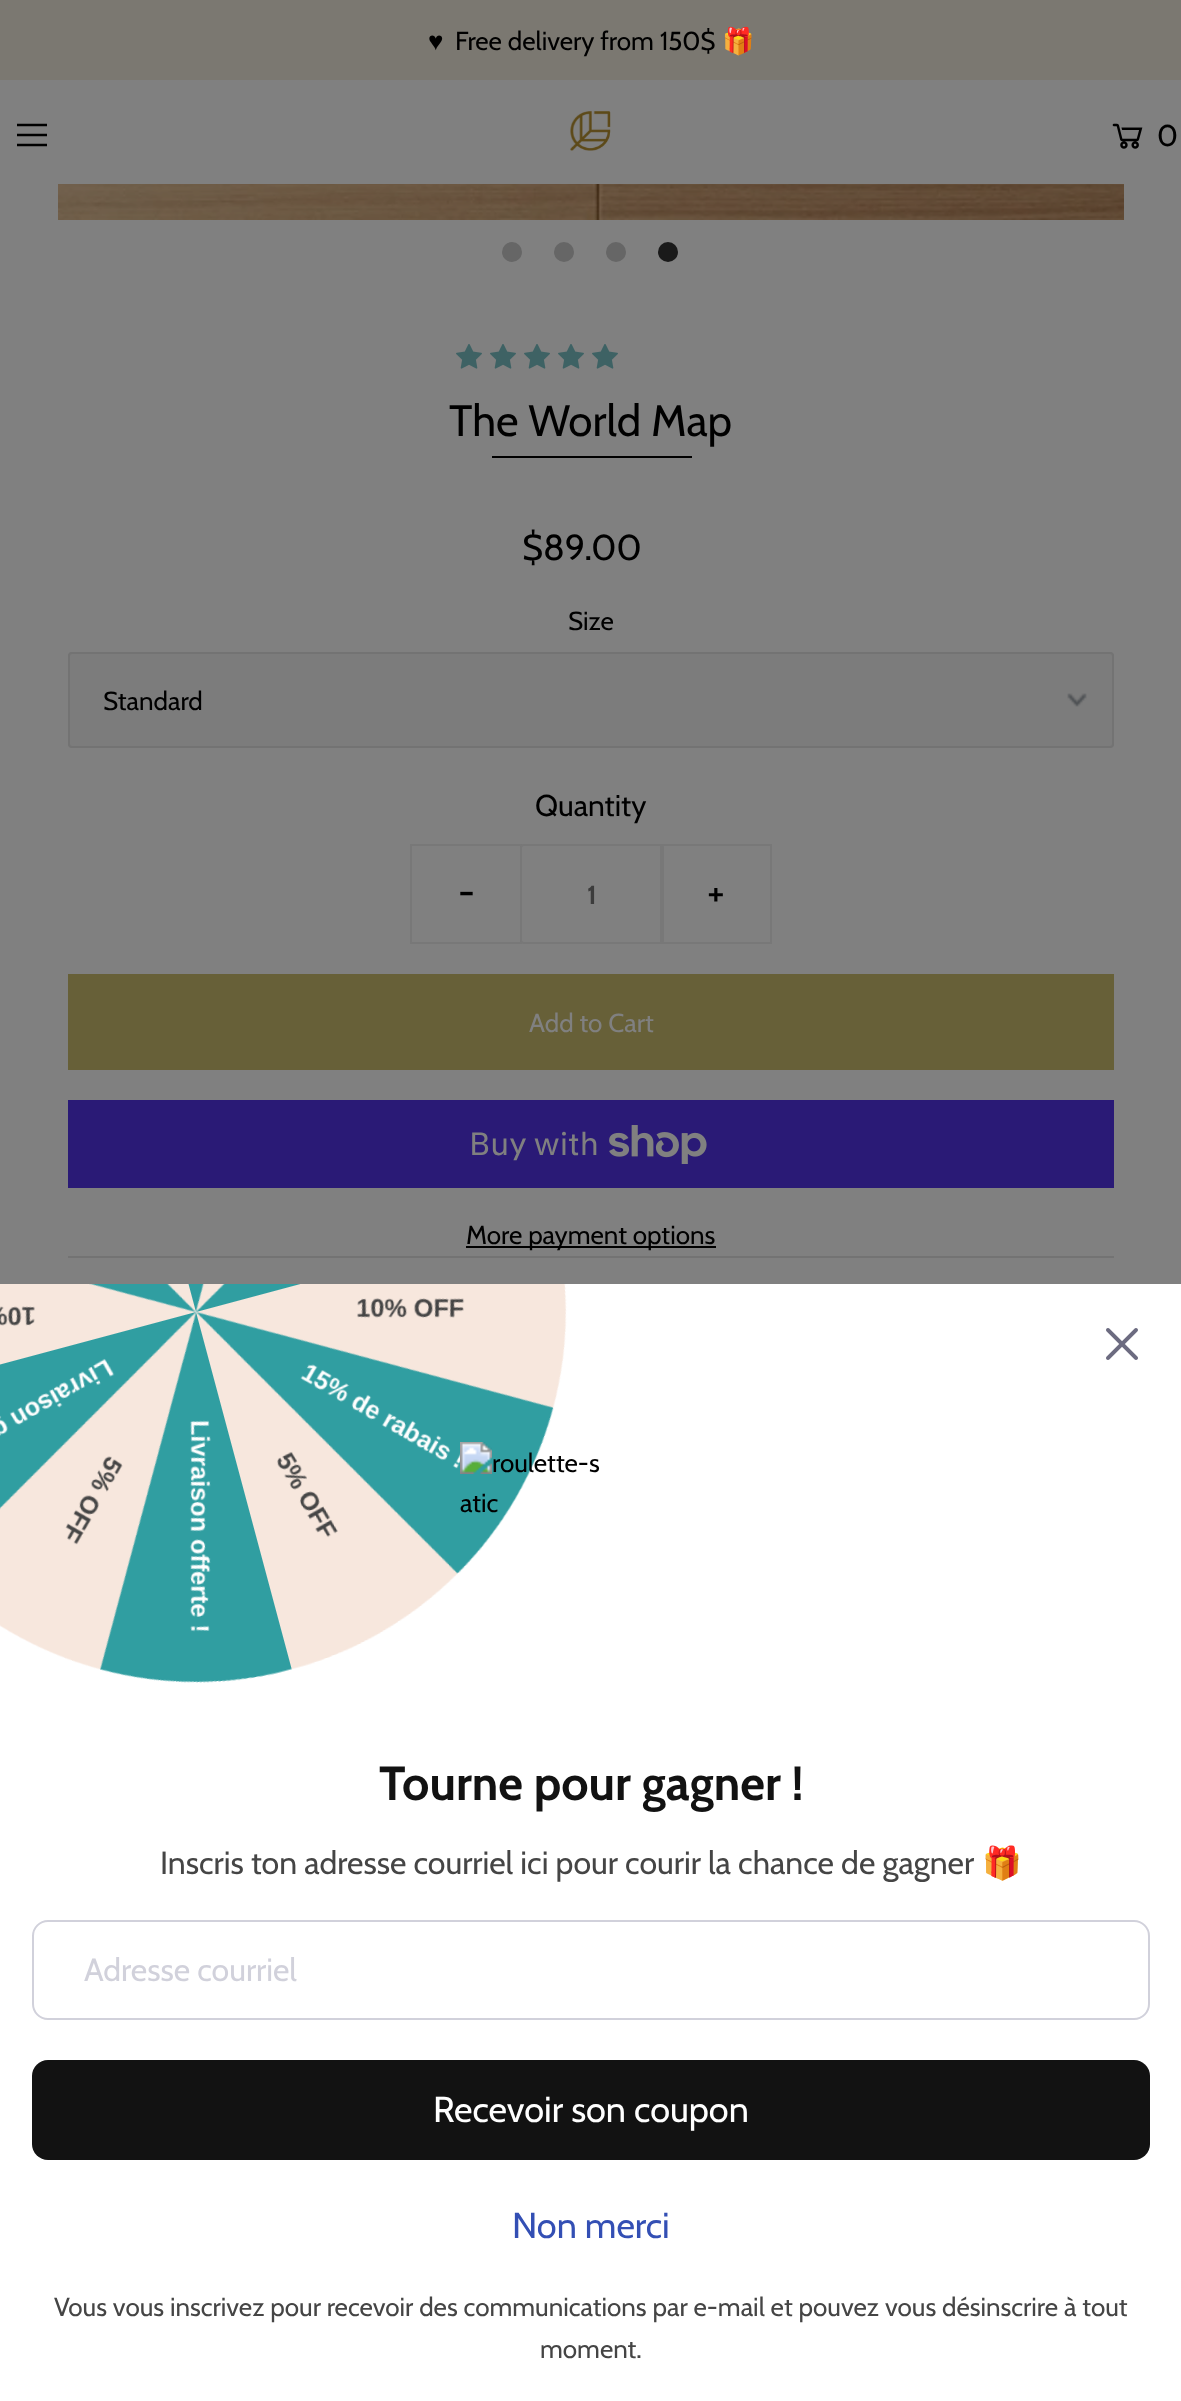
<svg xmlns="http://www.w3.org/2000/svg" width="1181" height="2401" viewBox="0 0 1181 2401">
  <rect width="100%" height="100%" fill="#808080"/>
  <rect x="0" y="0" width="1181" height="80" fill="#7b7871"/>
  <text x="428" y="50" font-family="Liberation Serif" font-size="26" fill="#000000">♥</text>
  <text x="455" y="50" font-family="Cabin" font-size="26" fill="#000000">Free delivery from 150$</text>
  <text x="722" y="50" font-family="Noto Color Emoji" font-size="26" fill="#000000">🎁</text>
  <image x="17" y="123" width="30" height="24" href="img1.png"/>
  <image x="570" y="111" width="41" height="40" href="img2.png"/>
  <image x="1112" y="123" width="31" height="26" href="img3.png"/>
  <text x="1157" y="146" font-family="Cabin" font-size="30" fill="#000000">0</text>
  <image x="58" y="184" width="1066" height="36" href="img4.png"/>
  <circle cx="512" cy="252" r="10" fill="#666666"/>
  <circle cx="564" cy="252" r="10" fill="#666666"/>
  <circle cx="616" cy="252" r="10" fill="#666666"/>
  <circle cx="668" cy="252" r="10" fill="#1a1a1a"/>
  <image x="456" y="344" width="26" height="25" href="img5.png"/>
  <image x="490" y="344" width="26" height="25" href="img5.png"/>
  <image x="524" y="344" width="26" height="25" href="img5.png"/>
  <image x="558" y="344" width="26" height="25" href="img5.png"/>
  <image x="592" y="344" width="26" height="25" href="img5.png"/>
  <text x="449" y="436" font-family="Cabin" font-size="44" fill="#000000">The World Map</text>
  <rect x="492" y="456" width="200" height="2" fill="#000000"/>
  <rect x="68" y="1256" width="1046" height="2" fill="#737373"/>
  <text x="522" y="560" font-family="Cabin" font-size="36" fill="#000000">$89.00</text>
  <text x="568" y="630" font-family="Cabin" font-size="26" fill="#000000">Size</text>
  <rect x="68" y="652" width="1046" height="96" rx="4" fill="#7c7c7c"/>
  <image x="1067" y="693" width="20" height="14" href="img6.png"/>
  <rect x="69" y="653" width="1044" height="94" rx="3" fill="none" stroke="#737373" stroke-width="2"/>
  <text x="103" y="710" font-family="Cabin" font-size="26" fill="#000000">Standard</text>
  <text x="535" y="816" font-family="Cabin" font-size="30" fill="#000000">Quantity</text>
  <rect x="411" y="845" width="110" height="98" fill="none" stroke="#787878" stroke-width="2"/>
  <text x="458" y="906" font-family="Cabin" font-size="40" fill="#000000">-</text>
  <rect x="521" y="845" width="142" height="98" rx="3" fill="none" stroke="#787878" stroke-width="2"/>
  <text x="587" y="904" font-family="Cabin" font-size="26" font-weight="bold" fill="#3c3c3c">1</text>
  <rect x="661" y="845" width="110" height="98" fill="none" stroke="#787878" stroke-width="2"/>
  <text x="707" y="906" font-family="Cabin" font-size="40" fill="#000000">+</text>
  <rect x="68" y="974" width="1046" height="96" fill="#676038"/>
  <text x="529" y="1032" font-family="Cabin" font-size="26" fill="#808080">Add to Cart</text>
  <rect x="68" y="1100" width="1046" height="88" fill="#2a1a76"/>
  <text x="469" y="1155" font-family="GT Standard" font-size="32" fill="#808080">Buy with</text>
  <image x="609" y="1125" width="98" height="39" href="img7.png"/>
  <rect x="466" y="1246" width="250" height="2" fill="#000000"/>
  <text x="466" y="1244" font-family="Cabin" font-size="26" fill="#000000">More payment options</text>
  <rect x="0" y="1284" width="1181" height="1117" fill="#ffffff"/>
  <image x="0" y="1284" width="567" height="399" href="img8.png"/>
  <image x="460" y="1442" width="140" height="71" href="img9.png"/>
  <image x="1106" y="1328" width="32" height="32" href="img10.png"/>
  <text x="379" y="1800" font-family="Cabin" font-size="48" font-weight="bold" fill="#121212">Tourne pour gagner !</text>
  <text x="160" y="1874" font-family="Cabin" font-size="32" fill="#454545">Inscris ton adresse courriel ici pour courir la chance de gagner</text>
  <text x="982" y="1874" font-family="Noto Color Emoji" font-size="32" fill="#454545">🎁</text>
  <rect x="33" y="1921" width="1116" height="98" rx="15" fill="none" stroke="#d1d1db" stroke-width="2"/>
  <text x="84" y="1981" font-family="Cabin" font-size="32" fill="#d1d1db">Adresse courriel</text>
  <rect x="32" y="2060" width="1118" height="100" rx="16" fill="#121212"/>
  <text x="433" y="2122" font-family="Cabin" font-size="36" fill="#ffffff">Recevoir son coupon</text>
  <text x="512" y="2238" font-family="Cabin" font-size="36" fill="#334fb4">Non merci</text>
  <text x="54" y="2316" font-family="Cabin" font-size="26" fill="#454545">Vous vous inscrivez pour recevoir des communications par e-mail et pouvez vous désinscrire à tout</text>
  <text x="540" y="2358" font-family="Cabin" font-size="26" fill="#454545">moment.</text>
</svg>
